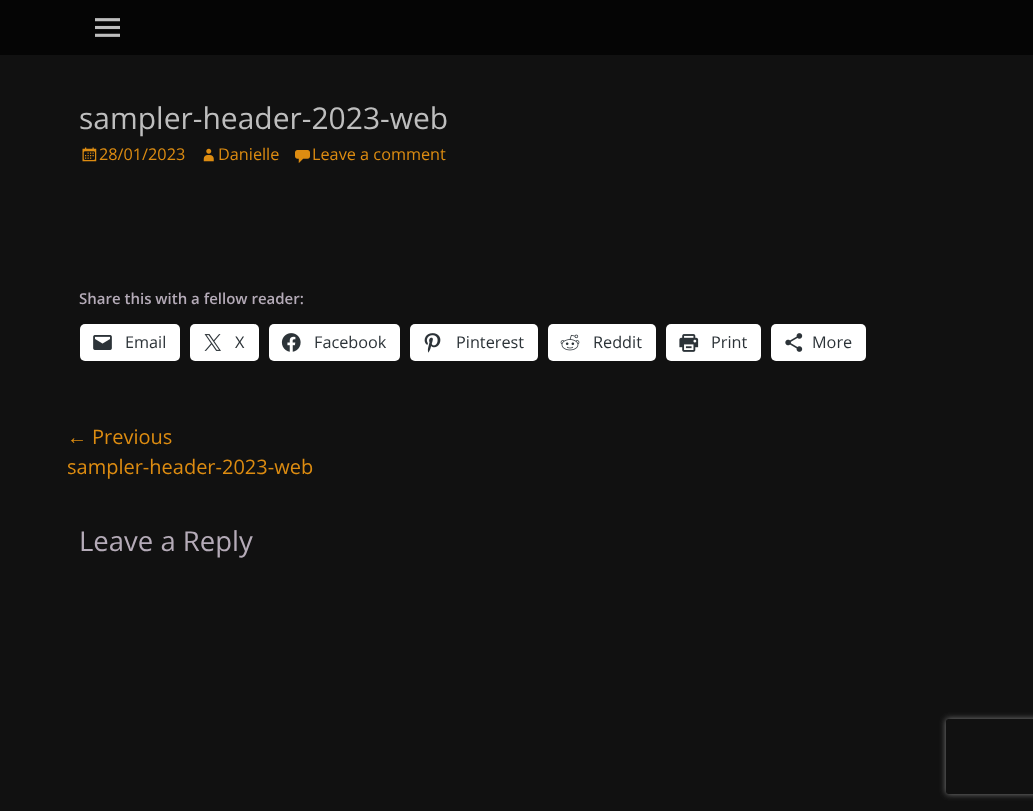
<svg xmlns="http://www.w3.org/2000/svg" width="1033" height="811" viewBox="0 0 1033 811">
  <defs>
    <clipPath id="clip1"><path d="M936 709H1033V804H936ZM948.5 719H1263.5C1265 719 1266 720 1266 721.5V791.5C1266 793 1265 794 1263.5 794H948.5C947 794 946 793 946 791.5V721.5C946 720 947 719 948.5 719Z" clip-rule="evenodd"/></clipPath>
    <filter id="blur1" x="-50%" y="-200%" width="200%" height="500%"><feGaussianBlur stdDeviation="3"/></filter>
  </defs>
  <rect width="100%" height="100%" fill="#111111"/>
  <rect x="0" y="0" width="1033" height="55" fill="#050505"/>
  <image x="95" y="18" width="25" height="19" href="img1.png"/>
  <text x="79" y="129" font-family="Open Sans" font-size="30" fill="#bebebe">sampler-header-2023-web</text>
  <image x="82" y="147" width="15" height="15" href="img2.png"/>
  <text x="99" y="160" font-family="Open Sans" font-size="16.25" fill="#dd8c11">28/01/2023</text>
  <image x="203" y="148" width="11" height="14" href="img3.png"/>
  <text x="218" y="160" font-family="Open Sans" font-size="16.25" fill="#dd8c11">Danielle</text>
  <image x="295" y="150" width="15" height="13" href="img4.png"/>
  <text x="312" y="160" font-family="Open Sans" font-size="16.25" fill="#dd8c11">Leave a comment</text>
  <text x="79" y="304" font-family="Open Sans" font-size="15" font-weight="600" fill="#b5abb8">Share this with a fellow reader:</text>
  <rect x="80" y="324" width="100" height="37" rx="5" fill="#ffffff"/>
  <image x="93" y="335" width="19" height="15" href="img5.png"/>
  <text x="125" y="348" font-family="Open Sans" font-size="16.25" fill="#2c3338">Email</text>
  <rect x="190" y="324" width="69" height="37" rx="5" fill="#ffffff"/>
  <image x="204" y="334" width="17" height="17" href="img6.png"/>
  <text x="235" y="348" font-family="Open Sans" font-size="16.25" fill="#2c3338">X</text>
  <rect x="269" y="324" width="131" height="37" rx="5" fill="#ffffff"/>
  <image x="281" y="333" width="20" height="19" href="img7.png"/>
  <text x="314" y="348" font-family="Open Sans" font-size="16.25" fill="#2c3338">Facebook</text>
  <rect x="410" y="324" width="128" height="37" rx="5" fill="#ffffff"/>
  <image x="424" y="333" width="17" height="20" href="img8.png"/>
  <text x="456" y="348" font-family="Open Sans" font-size="16.25" fill="#2c3338">Pinterest</text>
  <rect x="548" y="324" width="108" height="37" rx="5" fill="#ffffff"/>
  <image x="560" y="334" width="20" height="17" href="img9.png"/>
  <text x="593" y="348" font-family="Open Sans" font-size="16.25" fill="#2c3338">Reddit</text>
  <rect x="666" y="324" width="95" height="37" rx="5" fill="#ffffff"/>
  <image x="679" y="334" width="20" height="18" href="img10.png"/>
  <text x="711" y="348" font-family="Open Sans" font-size="16.25" fill="#2c3338">Print</text>
  <rect x="771" y="324" width="95" height="37" rx="5" fill="#ffffff"/>
  <image x="785" y="333" width="18" height="19" href="img11.png"/>
  <text x="812" y="348" font-family="Open Sans" font-size="16.25" fill="#2c3338">More</text>
  <text x="67" y="444" font-family="Liberation Sans" font-size="20" fill="#dd8c11">←</text>
  <text x="92" y="444" font-family="Open Sans" font-size="20" fill="#dd8c11">Previous</text>
  <text x="67" y="474" font-family="Open Sans" font-size="20" fill="#dd8c11">sampler-header-2023-web</text>
  <text x="79" y="551" font-family="Open Sans" font-size="27.5" fill="#b5abb8">Leave a Reply</text>
  <g clip-path="url(#clip1)">
    <rect x="946" y="719" width="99" height="75" rx="2.5" fill="#808080" filter="url(#blur1)"/>
  </g>
</svg>
